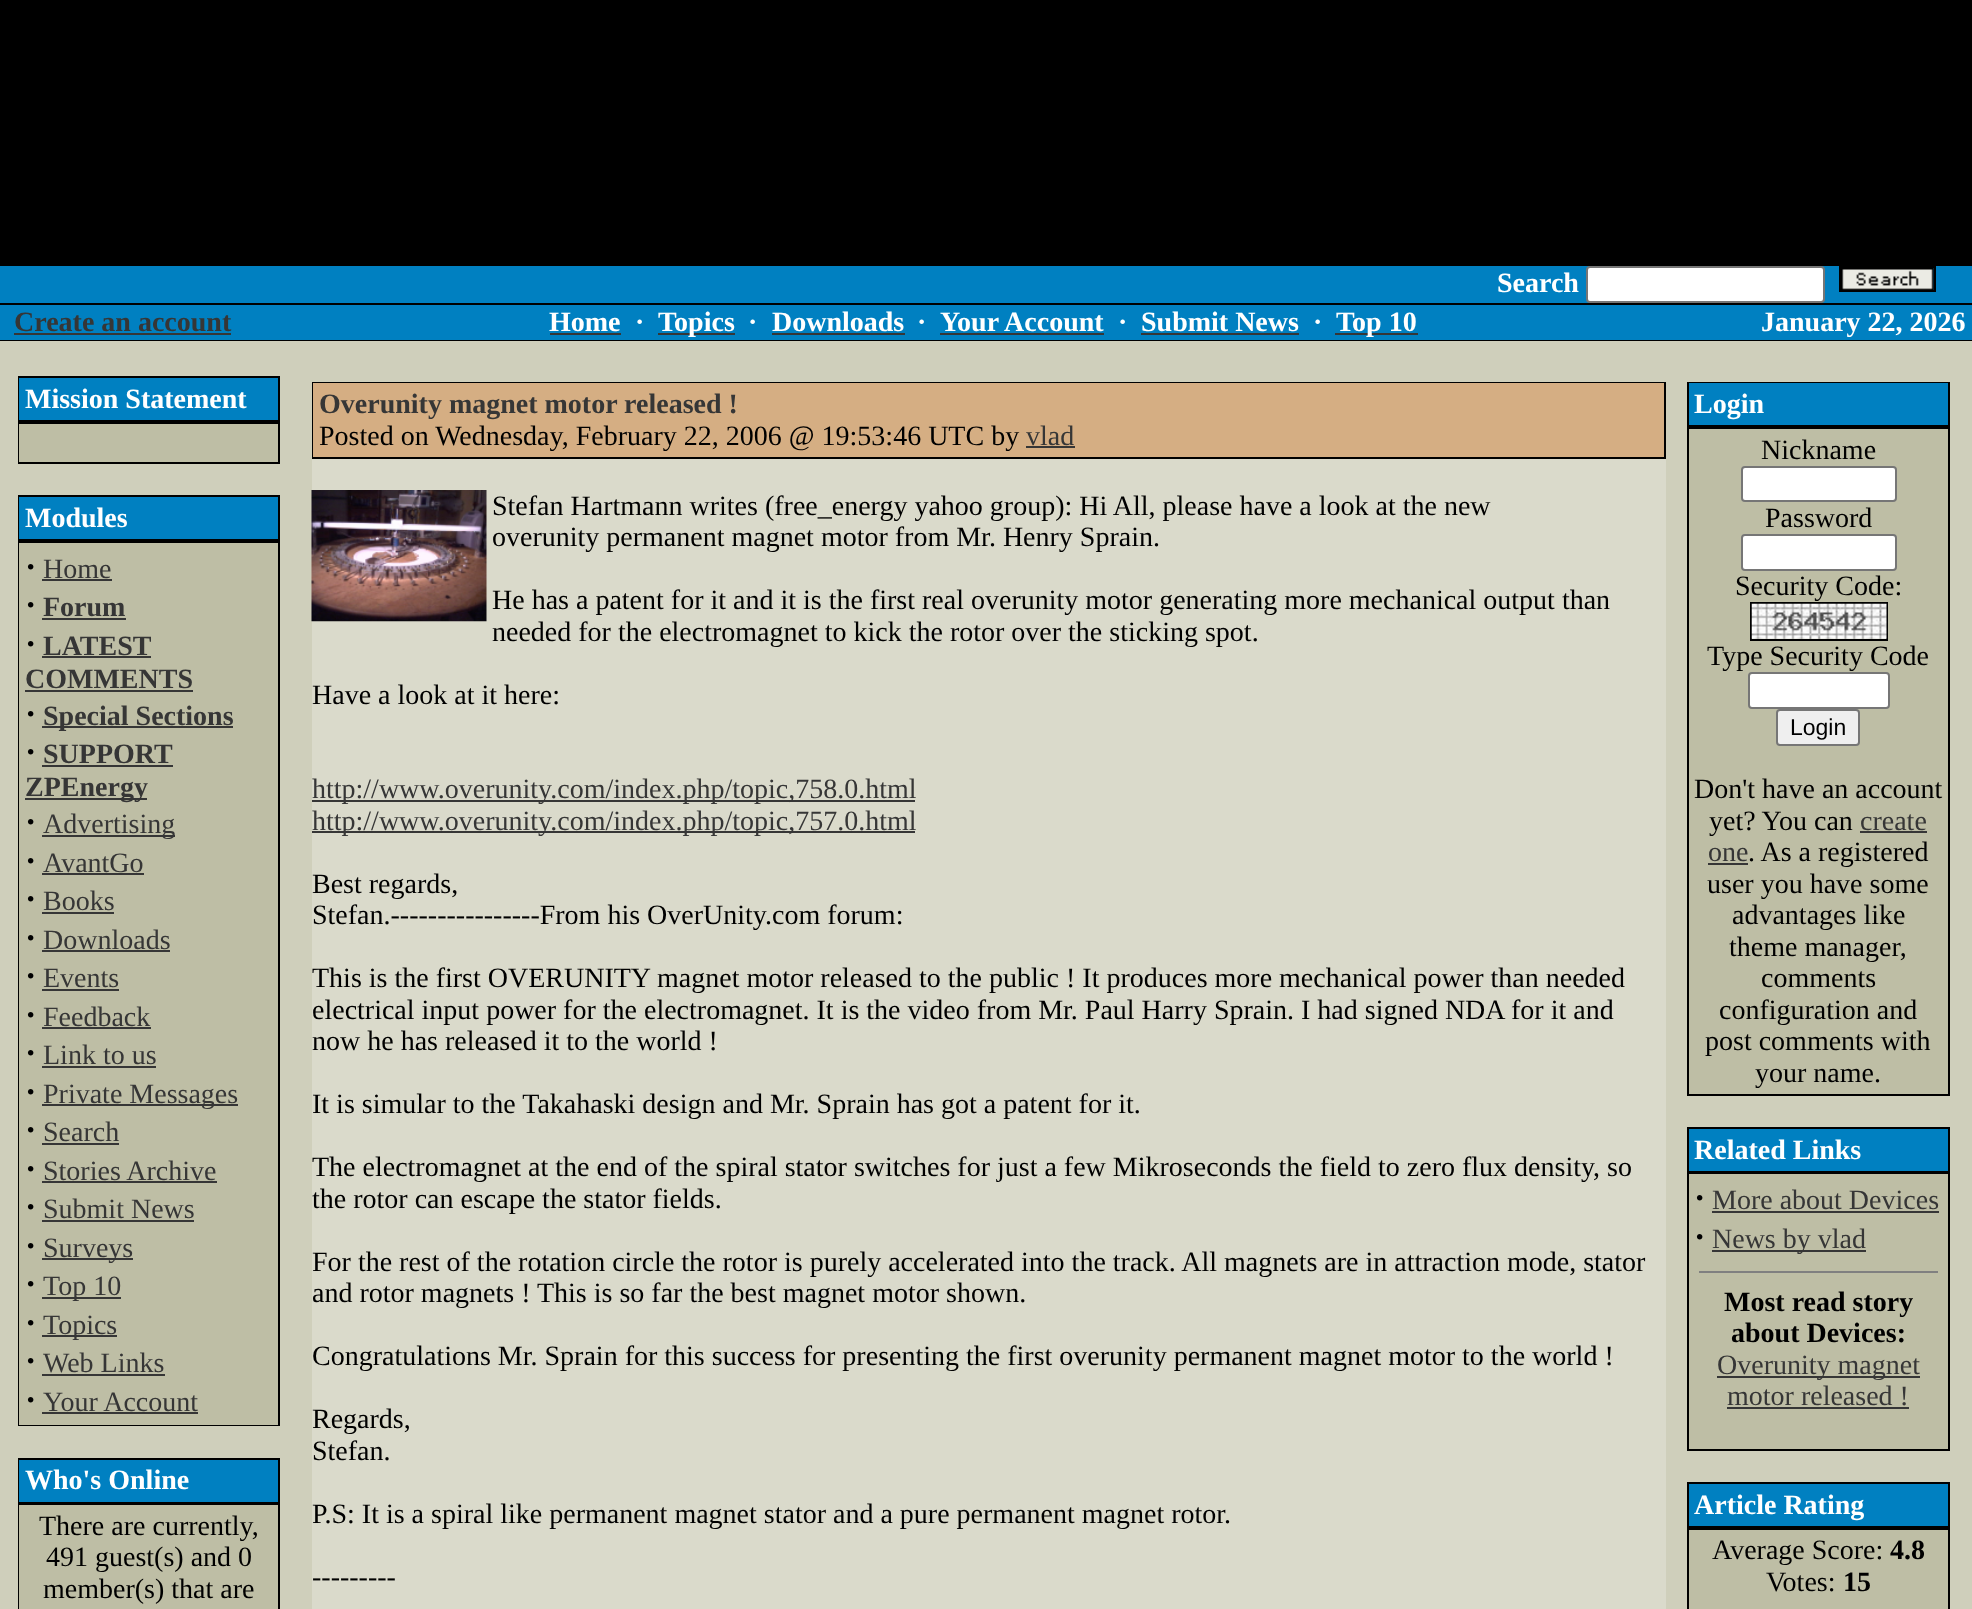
<svg xmlns="http://www.w3.org/2000/svg" width="1972" height="1609" viewBox="0 0 1972 1609">
  <rect width="100%" height="100%" fill="#000000"/>
  <rect x="0" y="266" width="1972" height="37" fill="#0080c1"/>
  <text x="1497" y="292" font-family="Liberation Serif" font-size="28" font-weight="bold" fill="#ffffff">Search</text>
  <rect x="1587" y="267" width="237" height="35" rx="3" fill="#ffffff" stroke="#767676" stroke-width="2"/>
  <rect x="1840" y="267" width="95" height="24" fill="none" stroke="#000000" stroke-width="2"/>
  <image x="1841" y="268" width="93" height="22" href="img1.png"/>
  <rect x="0" y="305" width="1972" height="35" fill="#0080c1"/>
  <text x="14" y="331" font-family="Liberation Serif" font-size="28" font-weight="bold" fill="#363636">Create an account</text>
  <rect x="14" y="333" width="217" height="2" fill="#363636"/>
  <text x="549" y="331" font-family="Liberation Serif" font-size="28" font-weight="bold" fill="#ffffff">Home</text>
  <rect x="550" y="333" width="71" height="2" fill="#363636"/>
  <text x="635" y="331" font-family="Liberation Serif" font-size="28" font-weight="bold" fill="#ffffff">·</text>
  <rect x="658" y="333" width="77" height="2" fill="#363636"/>
  <text x="658" y="331" font-family="Liberation Serif" font-size="28" font-weight="bold" fill="#ffffff">Topics</text>
  <text x="748" y="331" font-family="Liberation Serif" font-size="28" font-weight="bold" fill="#ffffff">·</text>
  <text x="772" y="331" font-family="Liberation Serif" font-size="28" font-weight="bold" fill="#ffffff">Downloads</text>
  <rect x="772" y="333" width="133" height="2" fill="#363636"/>
  <text x="917" y="331" font-family="Liberation Serif" font-size="28" font-weight="bold" fill="#ffffff">·</text>
  <text x="940" y="331" font-family="Liberation Serif" font-size="28" font-weight="bold" fill="#ffffff">Your Account</text>
  <rect x="940" y="333" width="164" height="2" fill="#363636"/>
  <text x="1118" y="331" font-family="Liberation Serif" font-size="28" font-weight="bold" fill="#ffffff">·</text>
  <text x="1141" y="331" font-family="Liberation Serif" font-size="28" font-weight="bold" fill="#ffffff">Submit News</text>
  <rect x="1141" y="333" width="158" height="2" fill="#363636"/>
  <text x="1313" y="331" font-family="Liberation Serif" font-size="28" font-weight="bold" fill="#ffffff">·</text>
  <rect x="1335" y="333" width="83" height="2" fill="#363636"/>
  <text x="1336" y="331" font-family="Liberation Serif" font-size="28" font-weight="bold" fill="#ffffff">Top 10</text>
  <text x="1761" y="331" font-family="Liberation Serif" font-size="28" font-weight="bold" fill="#ffffff">January 22, 2026</text>
  <rect x="0" y="341" width="1972" height="1268" fill="#cfcfbb"/>
  <rect x="18" y="376" width="262" height="88" fill="#000000"/>
  <rect x="19" y="378" width="259" height="42" fill="#0080c1"/>
  <text x="25" y="408" font-family="Liberation Serif" font-size="28" font-weight="bold" fill="#ffffff">Mission Statement</text>
  <rect x="19" y="424" width="259" height="38" fill="#bebea5"/>
  <rect x="18" y="495" width="262" height="931" fill="#000000"/>
  <rect x="19" y="497" width="259" height="42" fill="#0080c1"/>
  <text x="25" y="527" font-family="Liberation Serif" font-size="28" font-weight="bold" fill="#ffffff">Modules</text>
  <rect x="19" y="543" width="259" height="882" fill="#bebea5"/>
  <text x="25" y="578" font-family="Liberation Serif" font-size="34" font-weight="bold" fill="#000000">·</text>
  <text x="43" y="578" font-family="Liberation Serif" font-size="28" fill="#363636">Home</text>
  <rect x="42" y="579" width="70" height="2" fill="#363636"/>
  <text x="25" y="616" font-family="Liberation Serif" font-size="34" font-weight="bold" fill="#000000">·</text>
  <text x="43" y="616" font-family="Liberation Serif" font-size="28" font-weight="bold" fill="#363636">Forum</text>
  <rect x="42" y="618" width="84" height="2" fill="#363636"/>
  <text x="25" y="655" font-family="Liberation Serif" font-size="34" font-weight="bold" fill="#000000">·</text>
  <text x="43" y="655" font-family="Liberation Serif" font-size="28" font-weight="bold" fill="#363636">LATEST</text>
  <rect x="42" y="656" width="109" height="2" fill="#363636"/>
  <text x="25" y="688" font-family="Liberation Serif" font-size="28" font-weight="bold" fill="#363636">COMMENTS</text>
  <rect x="25" y="690" width="168" height="2" fill="#363636"/>
  <text x="25" y="725" font-family="Liberation Serif" font-size="34" font-weight="bold" fill="#000000">·</text>
  <rect x="42" y="726" width="191" height="2" fill="#363636"/>
  <text x="43" y="725" font-family="Liberation Serif" font-size="28" font-weight="bold" fill="#363636">Special Sections</text>
  <text x="25" y="763" font-family="Liberation Serif" font-size="34" font-weight="bold" fill="#000000">·</text>
  <text x="43" y="763" font-family="Liberation Serif" font-size="28" font-weight="bold" fill="#363636">SUPPORT</text>
  <rect x="42" y="765" width="131" height="2" fill="#363636"/>
  <rect x="25" y="798" width="122" height="2" fill="#363636"/>
  <text x="25" y="796" font-family="Liberation Serif" font-size="28" font-weight="bold" fill="#363636">ZPEnergy</text>
  <text x="25" y="833" font-family="Liberation Serif" font-size="34" font-weight="bold" fill="#000000">·</text>
  <rect x="42" y="835" width="133" height="2" fill="#363636"/>
  <text x="43" y="833" font-family="Liberation Serif" font-size="28" fill="#363636">Advertising</text>
  <text x="25" y="872" font-family="Liberation Serif" font-size="34" font-weight="bold" fill="#000000">·</text>
  <text x="43" y="872" font-family="Liberation Serif" font-size="28" fill="#363636">AvantGo</text>
  <rect x="42" y="873" width="102" height="2" fill="#363636"/>
  <text x="25" y="910" font-family="Liberation Serif" font-size="34" font-weight="bold" fill="#000000">·</text>
  <text x="43" y="910" font-family="Liberation Serif" font-size="28" fill="#363636">Books</text>
  <rect x="42" y="912" width="72" height="2" fill="#363636"/>
  <text x="25" y="949" font-family="Liberation Serif" font-size="34" font-weight="bold" fill="#000000">·</text>
  <text x="43" y="949" font-family="Liberation Serif" font-size="28" fill="#363636">Downloads</text>
  <rect x="42" y="950" width="128" height="2" fill="#363636"/>
  <text x="25" y="987" font-family="Liberation Serif" font-size="34" font-weight="bold" fill="#000000">·</text>
  <text x="43" y="987" font-family="Liberation Serif" font-size="28" fill="#363636">Events</text>
  <rect x="42" y="989" width="77" height="2" fill="#363636"/>
  <text x="25" y="1026" font-family="Liberation Serif" font-size="34" font-weight="bold" fill="#000000">·</text>
  <text x="43" y="1026" font-family="Liberation Serif" font-size="28" fill="#363636">Feedback</text>
  <rect x="42" y="1027" width="109" height="2" fill="#363636"/>
  <text x="25" y="1064" font-family="Liberation Serif" font-size="34" font-weight="bold" fill="#000000">·</text>
  <text x="43" y="1064" font-family="Liberation Serif" font-size="28" fill="#363636">Link to us</text>
  <rect x="42" y="1066" width="114" height="2" fill="#363636"/>
  <text x="25" y="1103" font-family="Liberation Serif" font-size="34" font-weight="bold" fill="#000000">·</text>
  <rect x="42" y="1104" width="196" height="2" fill="#363636"/>
  <text x="43" y="1103" font-family="Liberation Serif" font-size="28" fill="#363636">Private Messages</text>
  <text x="25" y="1141" font-family="Liberation Serif" font-size="34" font-weight="bold" fill="#000000">·</text>
  <text x="43" y="1141" font-family="Liberation Serif" font-size="28" fill="#363636">Search</text>
  <rect x="42" y="1143" width="77" height="2" fill="#363636"/>
  <text x="25" y="1180" font-family="Liberation Serif" font-size="34" font-weight="bold" fill="#000000">·</text>
  <text x="43" y="1180" font-family="Liberation Serif" font-size="28" fill="#363636">Stories Archive</text>
  <rect x="42" y="1181" width="175" height="2" fill="#363636"/>
  <text x="25" y="1218" font-family="Liberation Serif" font-size="34" font-weight="bold" fill="#000000">·</text>
  <text x="43" y="1218" font-family="Liberation Serif" font-size="28" fill="#363636">Submit News</text>
  <rect x="42" y="1220" width="152" height="2" fill="#363636"/>
  <text x="25" y="1257" font-family="Liberation Serif" font-size="34" font-weight="bold" fill="#000000">·</text>
  <rect x="42" y="1258" width="91" height="2" fill="#363636"/>
  <text x="43" y="1257" font-family="Liberation Serif" font-size="28" fill="#363636">Surveys</text>
  <text x="25" y="1295" font-family="Liberation Serif" font-size="34" font-weight="bold" fill="#000000">·</text>
  <rect x="42" y="1297" width="79" height="2" fill="#363636"/>
  <text x="43" y="1295" font-family="Liberation Serif" font-size="28" fill="#363636">Top 10</text>
  <text x="25" y="1334" font-family="Liberation Serif" font-size="34" font-weight="bold" fill="#000000">·</text>
  <rect x="42" y="1335" width="75" height="2" fill="#363636"/>
  <text x="43" y="1334" font-family="Liberation Serif" font-size="28" fill="#363636">Topics</text>
  <text x="25" y="1372" font-family="Liberation Serif" font-size="34" font-weight="bold" fill="#000000">·</text>
  <text x="43" y="1372" font-family="Liberation Serif" font-size="28" fill="#363636">Web Links</text>
  <rect x="42" y="1374" width="123" height="2" fill="#363636"/>
  <text x="25" y="1411" font-family="Liberation Serif" font-size="34" font-weight="bold" fill="#000000">·</text>
  <text x="43" y="1411" font-family="Liberation Serif" font-size="28" fill="#363636">Your Account</text>
  <rect x="42" y="1412" width="156" height="2" fill="#363636"/>
  <rect x="18" y="1458" width="262" height="151" fill="#000000"/>
  <rect x="19" y="1460" width="259" height="42" fill="#0080c1"/>
  <text x="25" y="1489" font-family="Liberation Serif" font-size="28" font-weight="bold" fill="#ffffff">Who's Online</text>
  <rect x="19" y="1505" width="259" height="104" fill="#bebea5"/>
  <text x="39" y="1535" font-family="Liberation Serif" font-size="28" fill="#000000">There are currently,</text>
  <text x="46" y="1566" font-family="Liberation Serif" font-size="28" fill="#000000">491 guest(s) and 0</text>
  <text x="43" y="1598" font-family="Liberation Serif" font-size="28" fill="#000000">member(s) that are</text>
  <rect x="312" y="459" width="1354" height="1150" fill="#dadacb"/>
  <rect x="312" y="382" width="1354" height="77" fill="#000000"/>
  <rect x="313" y="383" width="1351" height="74" fill="#d5ae83"/>
  <text x="319" y="413" font-family="Liberation Serif" font-size="28" font-weight="bold" fill="#363636">Overunity magnet motor released !</text>
  <text x="319" y="445" font-family="Liberation Serif" font-size="28" fill="#000000">Posted on Wednesday, February 22, 2006 @ 19:53:46 UTC by</text>
  <text x="1026" y="445" font-family="Liberation Serif" font-size="28" fill="#363636">vlad</text>
  <rect x="1026" y="446" width="49" height="2" fill="#363636"/>
  <image x="311" y="490" width="176" height="132" href="img2.png"/>
  <text x="492" y="515" font-family="Liberation Serif" font-size="28" fill="#000000">Stefan Hartmann writes (free_energy yahoo group): Hi All, please have a look at the new</text>
  <text x="492" y="546" font-family="Liberation Serif" font-size="28" fill="#000000">overunity permanent magnet motor from Mr. Henry Sprain.</text>
  <text x="492" y="609" font-family="Liberation Serif" font-size="28" fill="#000000">He has a patent for it and it is the first real overunity motor generating more mechanical output than</text>
  <text x="492" y="641" font-family="Liberation Serif" font-size="28" fill="#000000">needed for the electromagnet to kick the rotor over the sticking spot.</text>
  <text x="312" y="704" font-family="Liberation Serif" font-size="28" fill="#000000">Have a look at it here:</text>
  <rect x="312" y="800" width="603" height="2" fill="#363636"/>
  <text x="312" y="798" font-family="Liberation Serif" font-size="28" fill="#363636">http://www.overunity.com/index.php/topic,758.0.html</text>
  <rect x="312" y="831" width="603" height="2" fill="#363636"/>
  <text x="312" y="830" font-family="Liberation Serif" font-size="28" fill="#363636">http://www.overunity.com/index.php/topic,757.0.html</text>
  <text x="312" y="893" font-family="Liberation Serif" font-size="28" fill="#000000">Best regards,</text>
  <text x="312" y="924" font-family="Liberation Serif" font-size="28" fill="#000000">Stefan.----------------From his OverUnity.com forum:</text>
  <text x="312" y="987" font-family="Liberation Serif" font-size="28" fill="#000000">This is the first OVERUNITY magnet motor released to the public ! It produces more mechanical power than needed</text>
  <text x="312" y="1019" font-family="Liberation Serif" font-size="28" fill="#000000">electrical input power for the electromagnet. It is the video from Mr. Paul Harry Sprain. I had signed NDA for it and</text>
  <text x="312" y="1050" font-family="Liberation Serif" font-size="28" fill="#000000">now he has released it to the world !</text>
  <text x="312" y="1113" font-family="Liberation Serif" font-size="28" fill="#000000">It is simular to the Takahaski design and Mr. Sprain has got a patent for it.</text>
  <text x="312" y="1176" font-family="Liberation Serif" font-size="28" fill="#000000">The electromagnet at the end of the spiral stator switches for just a few Mikroseconds the field to zero flux density, so</text>
  <text x="312" y="1208" font-family="Liberation Serif" font-size="28" fill="#000000">the rotor can escape the stator fields.</text>
  <text x="312" y="1271" font-family="Liberation Serif" font-size="28" fill="#000000">For the rest of the rotation circle the rotor is purely accelerated into the track. All magnets are in attraction mode, stator</text>
  <text x="312" y="1302" font-family="Liberation Serif" font-size="28" fill="#000000">and rotor magnets ! This is so far the best magnet motor shown.</text>
  <text x="312" y="1365" font-family="Liberation Serif" font-size="28" fill="#000000">Congratulations Mr. Sprain for this success for presenting the first overunity permanent magnet motor to the world !</text>
  <text x="312" y="1428" font-family="Liberation Serif" font-size="28" fill="#000000">Regards,</text>
  <text x="312" y="1460" font-family="Liberation Serif" font-size="28" fill="#000000">Stefan.</text>
  <text x="312" y="1523" font-family="Liberation Serif" font-size="28" fill="#000000">P.S: It is a spiral like permanent magnet stator and a pure permanent magnet rotor.</text>
  <text x="312" y="1586" font-family="Liberation Serif" font-size="28" fill="#000000">---------</text>
  <rect x="1687" y="382" width="263" height="714" fill="#000000"/>
  <rect x="1689" y="383" width="259" height="42" fill="#0080c1"/>
  <text x="1694" y="413" font-family="Liberation Serif" font-size="28" font-weight="bold" fill="#ffffff">Login</text>
  <rect x="1689" y="429" width="259" height="665" fill="#bebea5"/>
  <text x="1761" y="459" font-family="Liberation Serif" font-size="28" fill="#000000">Nickname</text>
  <rect x="1742" y="467" width="154" height="34" rx="3" fill="#ffffff" stroke="#767676" stroke-width="2"/>
  <text x="1765" y="527" font-family="Liberation Serif" font-size="28" fill="#000000">Password</text>
  <rect x="1742" y="535" width="154" height="35" rx="3" fill="#ffffff" stroke="#767676" stroke-width="2"/>
  <text x="1735" y="595" font-family="Liberation Serif" font-size="28" fill="#000000">Security Code:</text>
  <rect x="1751" y="603" width="136" height="37" fill="none" stroke="#000000" stroke-width="2"/>
  <image x="1751" y="603" width="136" height="36" href="img3.png"/>
  <text x="1707" y="665" font-family="Liberation Serif" font-size="28" fill="#000000">Type Security Code</text>
  <rect x="1749" y="673" width="140" height="35" rx="3" fill="#ffffff" stroke="#767676" stroke-width="2"/>
  <rect x="1777" y="710" width="82" height="35" rx="3" fill="#efefef" stroke="#767676" stroke-width="2"/>
  <text x="1790" y="735" font-family="Liberation Sans" font-size="23" fill="#000000">Login</text>
  <text x="1694" y="798" font-family="Liberation Serif" font-size="28" fill="#000000">Don't have an account</text>
  <text x="1709" y="830" font-family="Liberation Serif" font-size="28" fill="#000000">yet? You can</text>
  <text x="1860" y="830" font-family="Liberation Serif" font-size="28" fill="#363636">create</text>
  <rect x="1860" y="831" width="67" height="2" fill="#363636"/>
  <text x="1708" y="861" font-family="Liberation Serif" font-size="28" fill="#363636">one</text>
  <rect x="1708" y="863" width="40" height="2" fill="#363636"/>
  <text x="1748" y="861" font-family="Liberation Serif" font-size="28" fill="#000000">. As a registered</text>
  <text x="1707" y="893" font-family="Liberation Serif" font-size="28" fill="#000000">user you have some</text>
  <text x="1732" y="924" font-family="Liberation Serif" font-size="28" fill="#000000">advantages like</text>
  <text x="1729" y="956" font-family="Liberation Serif" font-size="28" fill="#000000">theme manager,</text>
  <text x="1761" y="987" font-family="Liberation Serif" font-size="28" fill="#000000">comments</text>
  <text x="1719" y="1019" font-family="Liberation Serif" font-size="28" fill="#000000">configuration and</text>
  <text x="1705" y="1050" font-family="Liberation Serif" font-size="28" fill="#000000">post comments with</text>
  <text x="1755" y="1082" font-family="Liberation Serif" font-size="28" fill="#000000">your name.</text>
  <rect x="1687" y="1127" width="263" height="324" fill="#000000"/>
  <rect x="1689" y="1129" width="259" height="42" fill="#0080c1"/>
  <text x="1694" y="1159" font-family="Liberation Serif" font-size="28" font-weight="bold" fill="#ffffff">Related Links</text>
  <rect x="1689" y="1174" width="259" height="275" fill="#bebea5"/>
  <text x="1694" y="1209" font-family="Liberation Serif" font-size="34" font-weight="bold" fill="#000000">·</text>
  <text x="1712" y="1209" font-family="Liberation Serif" font-size="28" fill="#363636">More about Devices</text>
  <rect x="1712" y="1211" width="227" height="2" fill="#363636"/>
  <text x="1694" y="1248" font-family="Liberation Serif" font-size="34" font-weight="bold" fill="#000000">·</text>
  <rect x="1712" y="1250" width="154" height="2" fill="#363636"/>
  <text x="1712" y="1248" font-family="Liberation Serif" font-size="28" fill="#363636">News by vlad</text>
  <rect x="1699" y="1271" width="239" height="2" fill="#808080"/>
  <text x="1724" y="1311" font-family="Liberation Serif" font-size="28" font-weight="bold" fill="#000000">Most read story</text>
  <text x="1731" y="1342" font-family="Liberation Serif" font-size="28" font-weight="bold" fill="#000000">about Devices:</text>
  <rect x="1717" y="1376" width="203" height="2" fill="#363636"/>
  <text x="1717" y="1374" font-family="Liberation Serif" font-size="28" fill="#363636">Overunity magnet</text>
  <text x="1727" y="1405" font-family="Liberation Serif" font-size="28" fill="#363636">motor released !</text>
  <rect x="1727" y="1407" width="182" height="2" fill="#363636"/>
  <rect x="1687" y="1482" width="263" height="127" fill="#000000"/>
  <rect x="1689" y="1484" width="259" height="42" fill="#0080c1"/>
  <text x="1694" y="1514" font-family="Liberation Serif" font-size="28" font-weight="bold" fill="#ffffff">Article Rating</text>
  <rect x="1689" y="1530" width="259" height="79" fill="#bebea5"/>
  <text x="1712" y="1559" font-family="Liberation Serif" font-size="28" fill="#000000">Average Score:</text>
  <text x="1890" y="1559" font-family="Liberation Serif" font-size="28" font-weight="bold" fill="#000000">4.8</text>
  <text x="1766" y="1591" font-family="Liberation Serif" font-size="28" fill="#000000">Votes:</text>
  <text x="1843" y="1591" font-family="Liberation Serif" font-size="28" font-weight="bold" fill="#000000">15</text>
</svg>
